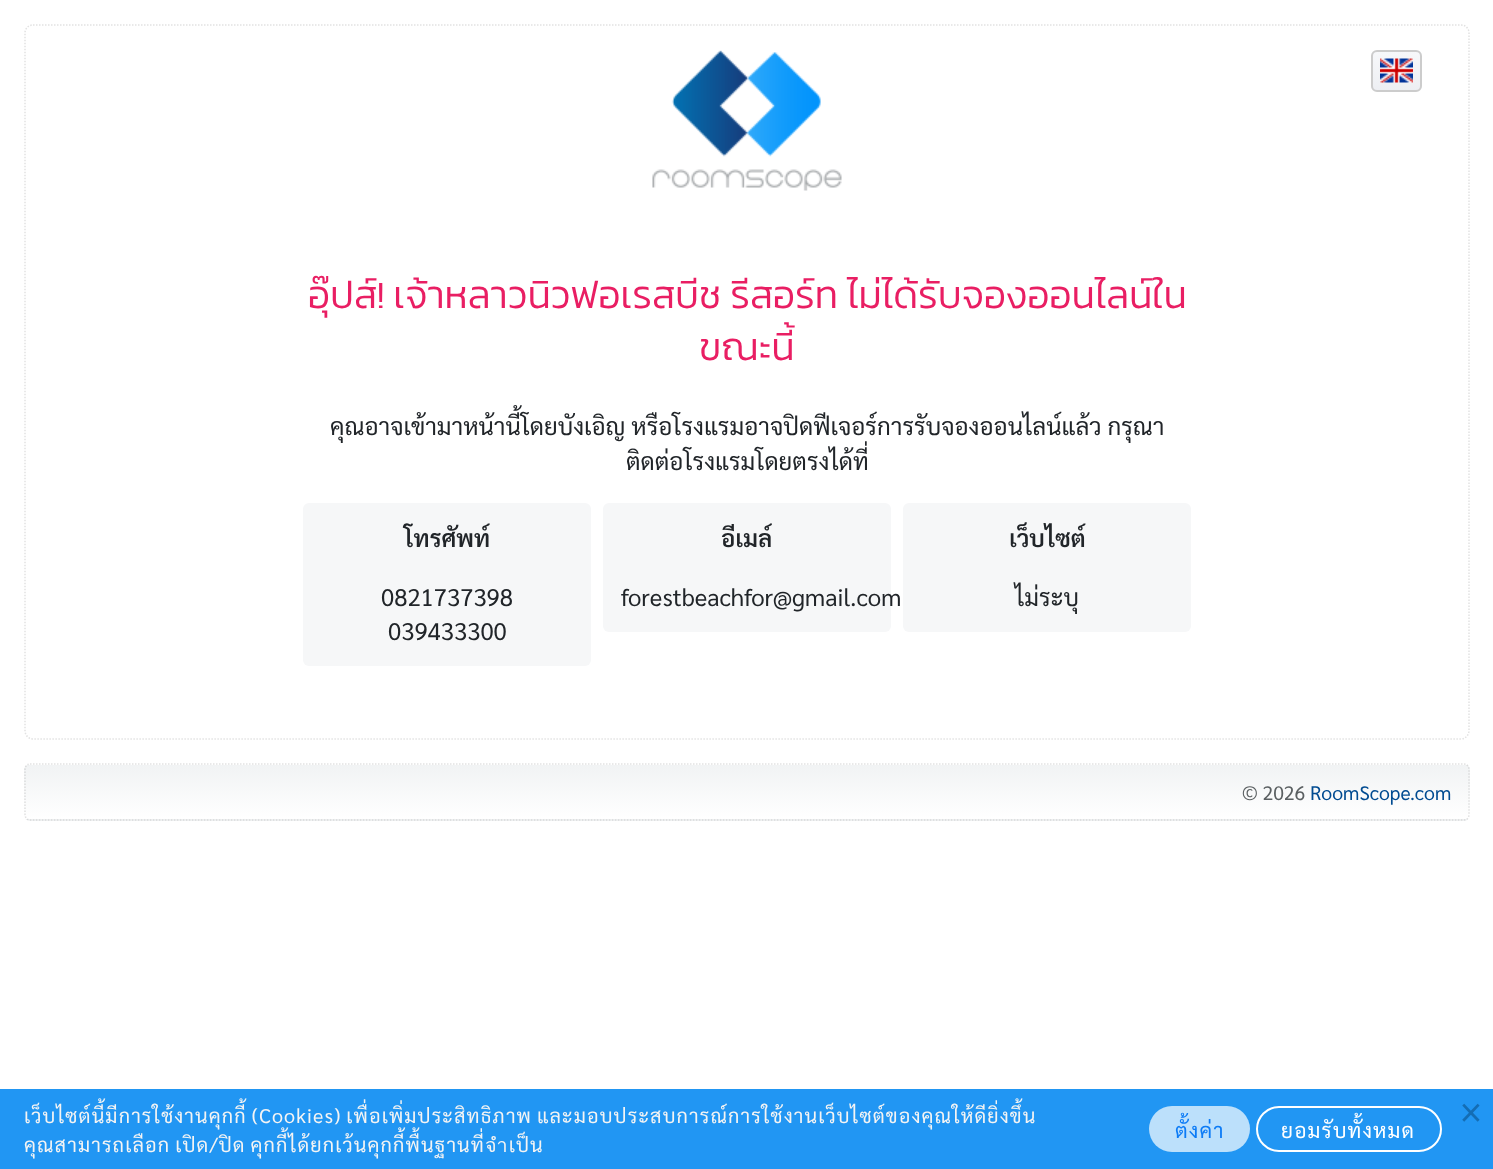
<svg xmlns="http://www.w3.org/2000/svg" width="1493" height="1169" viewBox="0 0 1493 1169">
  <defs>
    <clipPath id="clip1"><rect x="1371" y="50" width="51" height="42" rx="6"/></clipPath>
    <linearGradient id="g1" gradientUnits="userSpaceOnUse" x1="1397" y1="51" x2="1397" y2="90"><stop offset="0" stop-color="#f7f8fa"/><stop offset="1" stop-color="#edeff3"/></linearGradient>
    <clipPath id="clip2"><rect x="24" y="764" width="1446" height="57" rx="6"/></clipPath>
    <linearGradient id="g2" gradientUnits="userSpaceOnUse" x1="747" y1="765" x2="747" y2="819"><stop offset="0" stop-color="#f1f3f4"/><stop offset="1" stop-color="#ffffff"/></linearGradient>
    <linearGradient id="g3" gradientUnits="userSpaceOnUse" x1="747" y1="819" x2="747" y2="873"><stop offset="0" stop-color="#f1f3f4"/><stop offset="1" stop-color="#ffffff"/></linearGradient>
  </defs>
  <rect width="100%" height="100%" fill="#ffffff"/>
  <path d="M33 25H1461C1465.5 25 1469 28.5 1469 33V730.5C1469 735 1465.5 739 1461 739H33C28.5 739 25 735 25 730.5V33C25 28.5 28.5 25 33 25Z" fill="none" stroke="#e2e2e2" stroke-width="1.5" stroke-dasharray="1.5 1.5"/>
  <image x="652" y="50" width="190" height="141" href="img1.png"/>
  <g clip-path="url(#clip1)">
    <rect x="1371" y="51" width="51" height="39" fill="url(#g1)"/>
  </g>
  <rect x="1372" y="51" width="49" height="40" rx="5" fill="none" stroke="#cccccc" stroke-width="2"/>
  <image x="1380" y="58" width="33" height="25" href="img2.png"/>
  <text x="308" y="308" font-family="Kanit" font-size="39" font-weight="300" fill="#e91e63">อุ๊ปส์! เจ้าหลาวนิวฟอเรสบีช รีสอร์ท ไม่ได้รับจองออนไลน์ใน</text>
  <text x="699" y="360" font-family="Kanit" font-size="39" font-weight="300" fill="#e91e63">ขณะนี้</text>
  <text x="330" y="435" font-family="Sarabun" font-size="24" fill="#212529">คุณอาจเข้ามาหน้านี้โดยบังเอิญ หรือโรงแรมอาจปิดฟีเจอร์การรับจองออนไลน์แล้ว กรุณา</text>
  <text x="626" y="470" font-family="Sarabun" font-size="24" fill="#212529">ติดต่อโรงแรมโดยตรงได้ที่</text>
  <rect x="303" y="503" width="288" height="163" rx="6" fill="#f6f7f8"/>
  <text x="404" y="547" font-family="Sarabun" font-size="24" font-weight="600" fill="#212529">โทรศัพท์</text>
  <text x="381" y="606" font-family="Sarabun" font-size="24" fill="#212529">0821737398</text>
  <text x="388" y="640" font-family="Sarabun" font-size="24" fill="#212529">039433300</text>
  <rect x="603" y="503" width="288" height="129" rx="6" fill="#f6f7f8"/>
  <text x="721" y="547" font-family="Sarabun" font-size="24" font-weight="600" fill="#212529">อีเมล์</text>
  <text x="621" y="606" font-family="Sarabun" font-size="24" fill="#212529">forestbeachfor@gmail.com</text>
  <rect x="903" y="503" width="288" height="129" rx="6" fill="#f6f7f8"/>
  <text x="1009" y="547" font-family="Sarabun" font-size="24" font-weight="600" fill="#212529">เว็บไซต์</text>
  <text x="1015" y="606" font-family="Sarabun" font-size="24" fill="#212529">ไม่ระบุ</text>
  <g clip-path="url(#clip2)">
    <rect x="24" y="765" width="1446" height="54" fill="url(#g2)"/>
    <rect x="24" y="819" width="1446" height="2" fill="url(#g3)"/>
  </g>
  <path d="M30 764H1464C1467 764 1469 766.5 1469 769.5V814.5C1469 817.5 1467 820 1464 820H30C27 820 25 817.5 25 814.5V769.5C25 766.5 27 764 30 764Z" fill="none" stroke="#9e9e9e" stroke-opacity="0.3" stroke-width="1.5" stroke-dasharray="1.5 1.5"/>
  <text x="1242" y="800" font-family="Sarabun" font-size="19.5" fill="#5b6062">© 2026</text>
  <text x="1310" y="800" font-family="Sarabun" font-size="19.5" fill="#004b91">RoomScope.com</text>
  <rect x="0" y="1089" width="1493" height="80" fill="#2196f3"/>
  <text x="24" y="1123" word-spacing="-1" font-family="Sarabun" font-size="19.8" letter-spacing="1.12" fill="#f4f4f4">เว็บไซต์นี้มีการใช้งานคุกกี้ (Cookies) เพื่อเพิ่มประสิทธิภาพ และมอบประสบการณ์การใช้งานเว็บไซต์ของคุณให้ดียิ่งขึ้น</text>
  <text x="24" y="1152" word-spacing="-1" font-family="Sarabun" font-size="19.8" letter-spacing="1.12" fill="#f4f4f4">คุณสามารถเลือก เปิด/ปิด คุกกี้ได้ยกเว้นคุกกี้พื้นฐานที่จำเป็น</text>
  <rect x="1149" y="1106" width="101" height="46" rx="23" fill="#bce0fb"/>
  <text x="1175" y="1138" font-family="Sarabun" font-size="21" letter-spacing="1.12" fill="#0c7bf6">ตั้งค่า</text>
  <rect x="1257" y="1107" width="184" height="44" rx="22" fill="none" stroke="#ffffff" stroke-width="2"/>
  <text x="1281" y="1138" font-family="Sarabun" font-size="21" letter-spacing="1.12" fill="#ffffff">ยอมรับทั้งหมด</text>
  <text x="1460" y="1122" font-family="Sarabun" font-size="36" fill="#146db4">×</text>
</svg>
